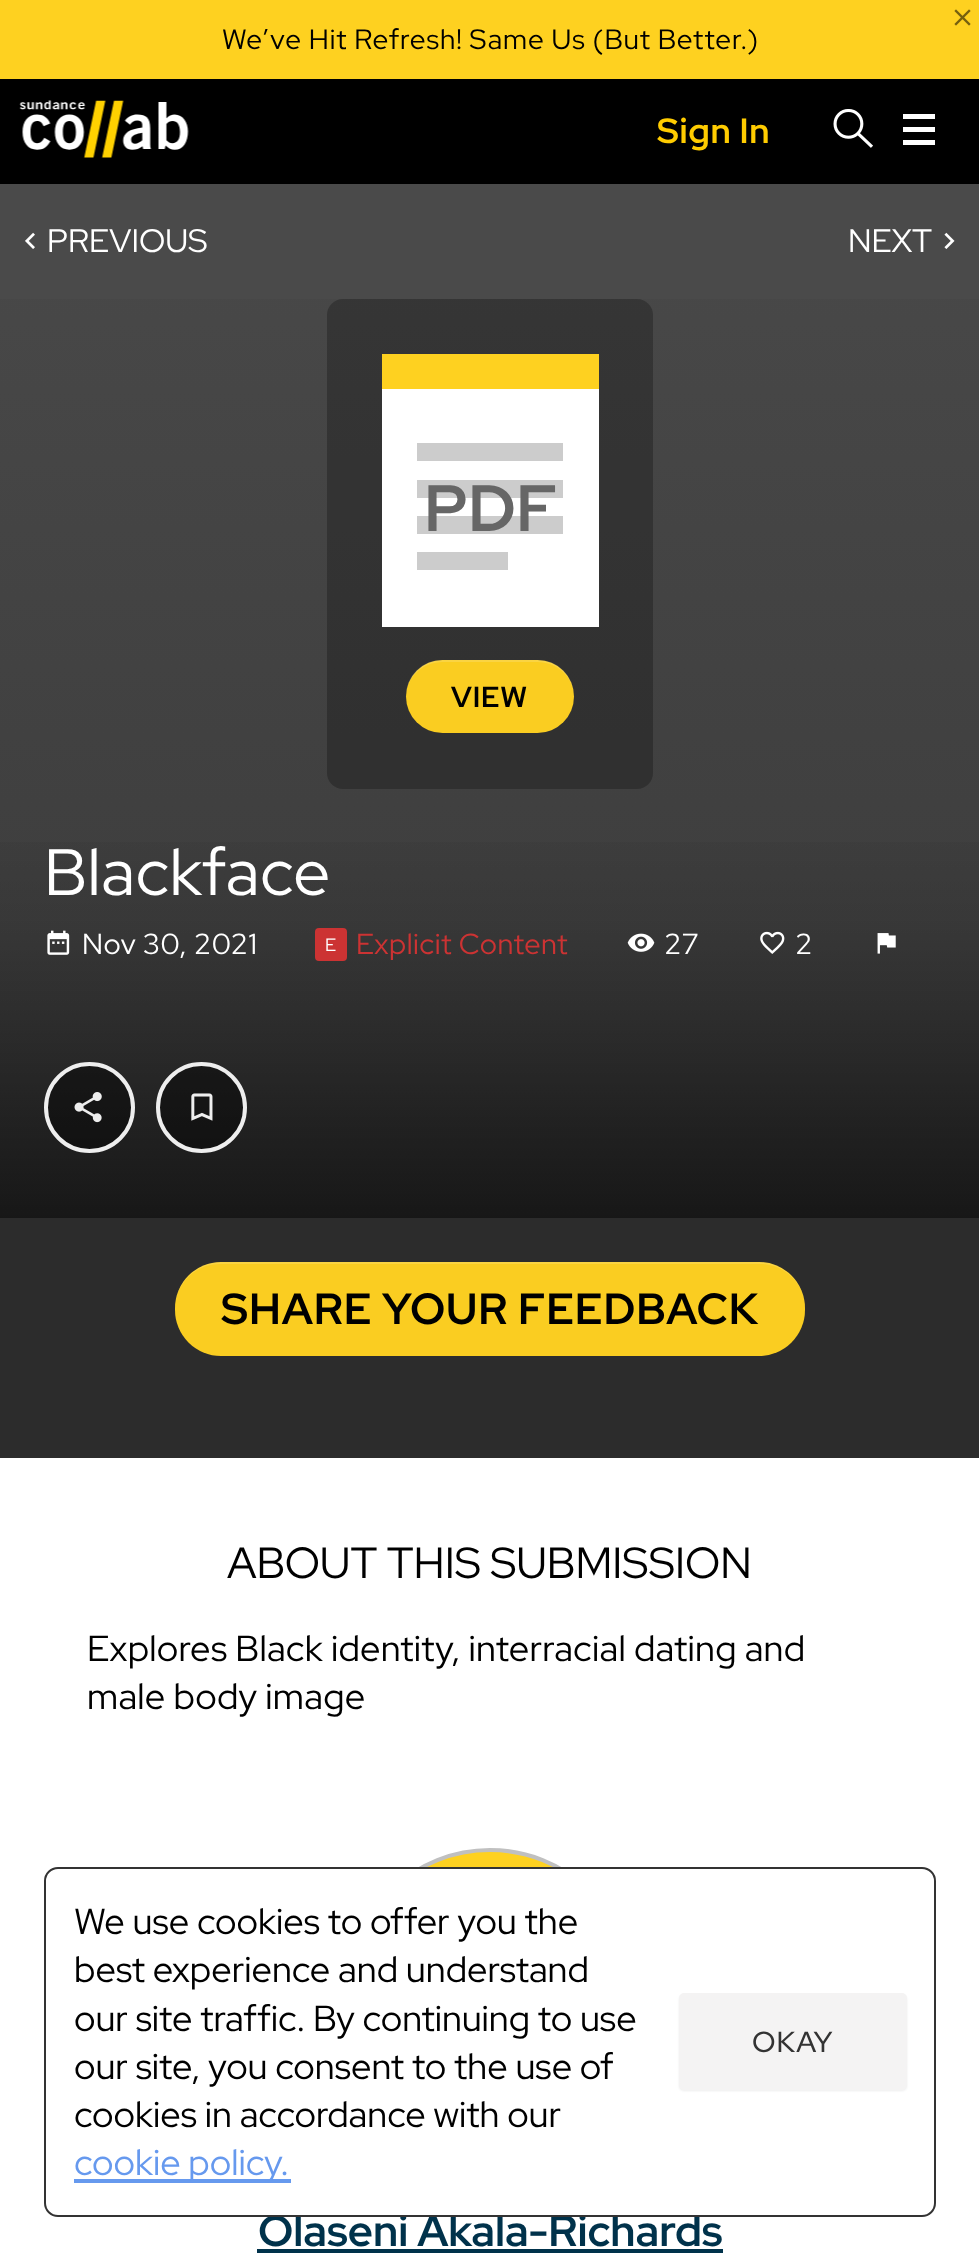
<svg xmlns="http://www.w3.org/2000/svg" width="979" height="2261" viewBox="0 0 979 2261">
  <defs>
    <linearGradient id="g1" gradientUnits="userSpaceOnUse" x1="490" y1="184" x2="490" y2="1218"><stop offset="0" stop-color="#494949"/><stop offset="1" stop-color="#3a3a3a"/></linearGradient>
    <linearGradient id="g2" gradientUnits="userSpaceOnUse" x1="490" y1="789" x2="490" y2="1218"><stop offset="0" stop-color="#000000" stop-opacity="0"/><stop offset="0.3" stop-color="#000000" stop-opacity="0.1"/><stop offset="1" stop-color="#000000" stop-opacity="0.6"/></linearGradient>
    <filter id="blur1" x="-50%" y="-200%" width="200%" height="500%"><feGaussianBlur stdDeviation="1"/></filter>
  </defs>
  <rect width="100%" height="100%" fill="#2c2c2c"/>
  <rect x="0" y="0" width="979" height="79" fill="#fed120"/>
  <image x="954" y="9" width="17" height="17" href="img1.png"/>
  <text x="222" y="49" font-family="Red Hat Display" font-size="28" letter-spacing="0.9" fill="#000000">We’ve Hit Refresh! Same Us (But Better.)</text>
  <rect x="0" y="79" width="979" height="105" fill="#000000"/>
  <image x="19" y="100" width="170" height="58" href="img2.png"/>
  <text x="657" y="143" font-family="Red Hat Display" font-size="35" font-weight="bold" letter-spacing="0.75" fill="#ffcc00">Sign In</text>
  <image x="833" y="109" width="40" height="39" href="img3.png"/>
  <rect x="903" y="114" width="32" height="5" fill="#ffffff"/>
  <rect x="903" y="127" width="32" height="5" fill="#ffffff"/>
  <rect x="903" y="140" width="32" height="5" fill="#ffffff"/>
  <rect x="0" y="299" width="979" height="919" fill="url(#g1)"/>
  <rect x="0" y="184" width="979" height="115" fill="#4a4a4a"/>
  <image x="25" y="232" width="10" height="17" href="img4.png"/>
  <text x="47" y="252" font-family="Red Hat Display" font-size="32.5" fill="#ffffff">PREVIOUS</text>
  <text x="848" y="252" font-family="Red Hat Display" font-size="32.5" fill="#ffffff">NEXT</text>
  <image x="944" y="232" width="11" height="17" href="img5.png"/>
  <rect x="327" y="299" width="326" height="490" rx="16" fill="#000000" fill-opacity="0.25"/>
  <rect x="382" y="389" width="217" height="238" fill="#ffffff"/>
  <rect x="382" y="354" width="217" height="35" fill="#fed120"/>
  <path d="M417 443H563V461H417ZM417 534V516H563V534ZM563 480V498H417V480ZM508 552V570H417V552Z" fill="#cccccc"/>
  <text x="424" y="531" font-family="Red Hat Display" font-size="65.5" font-weight="bold" fill="#666666">PDF</text>
  <rect x="406" y="660" width="168" height="73" rx="36.5" fill="#facd21"/>
  <path d="M443 662H537C558 662 574 678 574 697V696C574 676 558 660 538 660H442C422 660 406 676 406 696V697C406 678 422 662 443 662Z" fill="#ffffff" fill-opacity="0.15"/>
  <text x="451" y="707" font-family="Red Hat Display" font-size="29" font-weight="bold" letter-spacing="0.9" fill="#000000">VIEW</text>
  <rect x="0" y="842" width="979" height="376" fill="url(#g2)"/>
  <text x="44" y="895" font-family="Red Hat Display" font-size="65.5" letter-spacing="0.5" fill="#ffffff">Blackface</text>
  <image x="47" y="930" width="23" height="25" href="img6.png"/>
  <text x="82" y="954" font-family="Red Hat Display" font-size="29" letter-spacing="0.5" fill="#ffffff">Nov 30, 2021</text>
  <rect x="315" y="928" width="32" height="33" rx="4" fill="#cc3333"/>
  <text x="325" y="951" font-family="Red Hat Display" font-size="18" letter-spacing="0.5" fill="#ffffff">E</text>
  <text x="356" y="954" font-family="Red Hat Display" font-size="29" letter-spacing="0.5" fill="#cc3333">Explicit Content</text>
  <image x="627" y="933" width="28" height="19" href="img7.png"/>
  <text x="664" y="954" font-family="Red Hat Display" font-size="29" letter-spacing="0.5" fill="#ffffff">27</text>
  <image x="760" y="931" width="25" height="23" href="img8.png"/>
  <text x="795" y="954" font-family="Red Hat Display" font-size="29" letter-spacing="0.5" fill="#ffffff">2</text>
  <image x="877" y="933" width="19" height="21" href="img9.png"/>
  <circle cx="89.5" cy="1107.5" r="45.5" fill="#000000" fill-opacity="0.4"/>
  <image x="74" y="1092" width="28" height="31" href="img10.png"/>
  <circle cx="89.5" cy="1107.5" r="43.5" fill="none" stroke="#eeeeee" stroke-width="4"/>
  <circle cx="201.5" cy="1107.5" r="45.5" fill="#000000" fill-opacity="0.4"/>
  <image x="191" y="1093" width="22" height="28" href="img11.png"/>
  <circle cx="201.5" cy="1107.5" r="43.5" fill="none" stroke="#eeeeee" stroke-width="4"/>
  <rect x="175" y="1262" width="630" height="94" rx="46" fill="#facd21"/>
  <path d="M220 1264H760C785 1264 805 1284 805 1309V1308C805 1283 784 1262 759 1262H221C196 1262 175 1283 175 1308V1309C175 1284 195 1264 220 1264Z" fill="#ffffff" fill-opacity="0.15"/>
  <text x="221" y="1324" font-family="Red Hat Display" font-size="43.5" font-weight="bold" letter-spacing="0.9" fill="#000000">SHARE YOUR FEEDBACK</text>
  <rect x="0" y="1458" width="979" height="803" fill="#ffffff"/>
  <text x="227" y="1578" font-family="Red Hat Display" font-size="43.5" fill="#000000">ABOUT THIS SUBMISSION</text>
  <text x="87" y="1661" font-family="Red Hat Display" font-size="36.25" letter-spacing="0.25" fill="#000000">Explores Black identity, interracial dating and</text>
  <text x="87" y="1709" font-family="Red Hat Display" font-size="36.25" letter-spacing="0.25" fill="#000000">male body image</text>
  <rect x="347" y="1850" width="286" height="287" rx="143" fill="#fed120" stroke="#c0c0c0" stroke-width="4"/>
  <text x="258" y="2246" font-family="Red Hat Display" font-size="43.5" font-weight="bold" fill="#00324b">Olaseni Akala-Richards</text>
  <rect x="257" y="2249" width="466" height="4" fill="#00324b"/>
  <rect x="45" y="1868" width="890" height="348" rx="13" fill="#ffffff" stroke="#333333" stroke-width="2"/>
  <text x="74" y="1934" font-family="Red Hat Display" font-size="36.25" fill="#000000">We use cookies to offer you the</text>
  <text x="74" y="1982" font-family="Red Hat Display" font-size="36.25" fill="#000000">best experience and understand</text>
  <text x="74" y="2031" font-family="Red Hat Display" font-size="36.25" fill="#000000">our site traffic. By continuing to use</text>
  <text x="74" y="2079" font-family="Red Hat Display" font-size="36.25" fill="#000000">our site, you consent to the use of</text>
  <text x="74" y="2127" font-family="Red Hat Display" font-size="36.25" fill="#000000">cookies in accordance with our</text>
  <rect x="74" y="2179" width="217" height="4" fill="#6699ee"/>
  <text x="74" y="2175" font-family="Red Hat Display" font-size="36.25" fill="#6699ee">cookie policy.</text>
  <rect x="679" y="1995" width="228" height="96" rx="5" fill="#000000" fill-opacity="0.07" filter="url(#blur1)"/>
  <rect x="679" y="1993" width="228" height="97" rx="5" fill="#f4f3f3"/>
  <text x="752" y="2052" font-family="Red Hat Display" font-size="29" font-weight="500" letter-spacing="0.9" fill="#333333">OKAY</text>
</svg>
